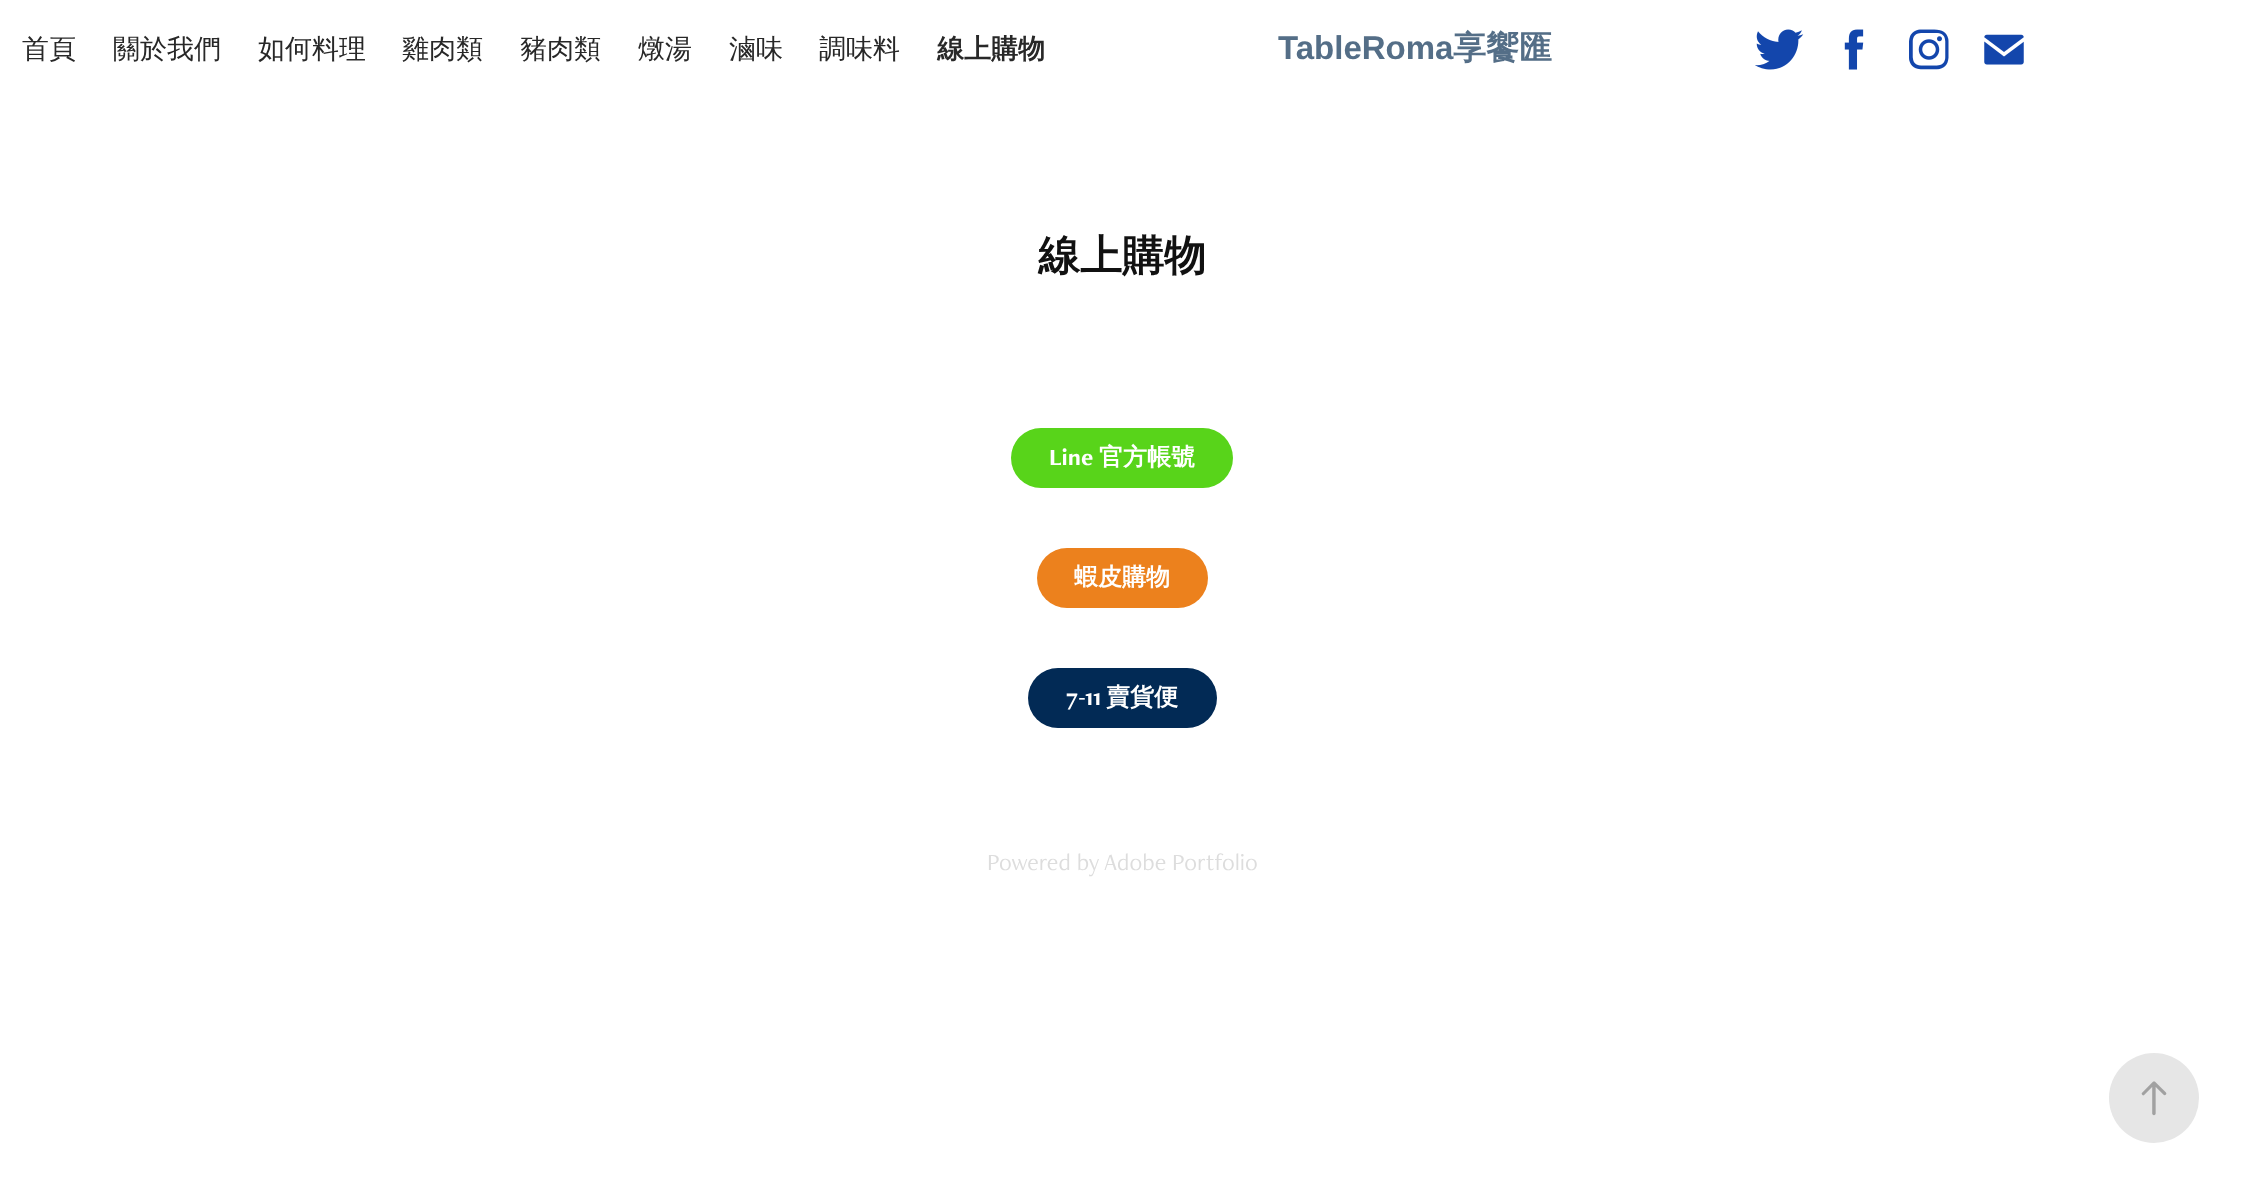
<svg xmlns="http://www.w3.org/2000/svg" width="2243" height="1188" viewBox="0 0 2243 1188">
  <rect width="100%" height="100%" fill="#ffffff"/>
  <text x="22" y="58" font-family="WenQuanYi Zen Hei" font-size="27" font-weight="500" fill="#282828">首頁</text>
  <text x="113" y="58" font-family="WenQuanYi Zen Hei" font-size="27" font-weight="500" fill="#282828">關於我們</text>
  <text x="258" y="58" font-family="WenQuanYi Zen Hei" font-size="27" font-weight="500" fill="#282828">如何料理</text>
  <text x="402" y="58" font-family="WenQuanYi Zen Hei" font-size="27" font-weight="500" fill="#282828">雞肉類</text>
  <text x="520" y="58" font-family="WenQuanYi Zen Hei" font-size="27" font-weight="500" fill="#282828">豬肉類</text>
  <text x="638" y="58" font-family="WenQuanYi Zen Hei" font-size="27" font-weight="500" fill="#282828">燉湯</text>
  <text x="729" y="58" font-family="WenQuanYi Zen Hei" font-size="27" font-weight="500" fill="#282828">滷味</text>
  <text x="819" y="58" font-family="WenQuanYi Zen Hei" font-size="27" font-weight="500" fill="#282828">調味料</text>
  <text x="937" y="58" font-family="WenQuanYi Zen Hei" font-size="27" font-weight="bold" fill="#282828">線上購物</text>
  <text x="1278" y="59" font-family="Liberation Sans" font-size="33" font-weight="bold" fill="#546e87">TableRoma</text>
  <text x="1453" y="59" font-family="WenQuanYi Zen Hei" font-size="33" font-weight="bold" fill="#546e87">享饗匯</text>
  <image x="1755" y="29" width="49" height="41" href="img1.png"/>
  <image x="1844" y="29" width="20" height="41" href="img2.png"/>
  <image x="1909" y="29" width="40" height="41" href="img3.png"/>
  <image x="1984" y="34" width="40" height="31" href="img4.png"/>
  <text x="1038" y="270" font-family="WenQuanYi Zen Hei" font-size="42" font-weight="bold" fill="#111111">線上購物</text>
  <rect x="1011" y="428" width="222" height="60" rx="30" fill="#58d41a"/>
  <text x="1049" y="465" font-family="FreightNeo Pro" font-size="24" font-weight="bold" fill="#ffffff">Line</text>
  <text x="1099" y="465" font-family="WenQuanYi Zen Hei" font-size="24" font-weight="bold" fill="#ffffff">官方帳號</text>
  <rect x="1037" y="548" width="171" height="60" rx="30" fill="#ec811d"/>
  <text x="1074" y="585" font-family="WenQuanYi Zen Hei" font-size="24" font-weight="bold" fill="#ffffff">蝦皮購物</text>
  <rect x="1028" y="668" width="189" height="60" rx="30" fill="#022a55"/>
  <text x="1066" y="705" font-family="FreightNeo Pro" font-size="24" font-weight="bold" fill="#ffffff">7-11</text>
  <text x="1106" y="705" font-family="WenQuanYi Zen Hei" font-size="24" font-weight="bold" fill="#ffffff">賣貨便</text>
  <circle cx="2154" cy="1098" r="45" fill="#e6e6e6"/>
  <image x="2141" y="1081" width="26" height="35" href="img5.png"/>
  <text x="987" y="870" font-family="FreightNeo Pro" font-size="24" fill="#dddddd">Powered by</text>
  <text x="1104" y="870" font-family="FreightNeo Pro" font-size="24" fill="#dddddd">Adobe Portfolio</text>
</svg>
